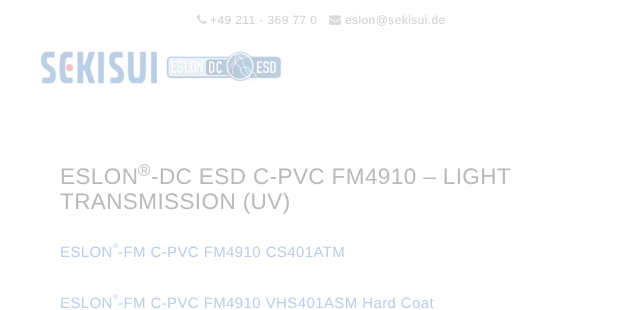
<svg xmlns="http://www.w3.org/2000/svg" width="642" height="310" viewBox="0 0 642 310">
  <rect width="100%" height="100%" fill="#ffffff"/>
  <image x="197" y="14" width="10" height="10" href="img1.png"/>
  <text x="210" y="24" font-family="Liberation Sans" font-size="12" letter-spacing="0.4" fill="#d0d0d0">+49 211 - 369 77 0</text>
  <image x="329" y="15" width="12" height="10" href="img2.png"/>
  <text x="345" y="24" font-family="Liberation Sans" font-size="12" letter-spacing="0.4" fill="#d0d0d0">eslon@sekisui.de</text>
  <image x="40" y="51" width="244" height="33" href="img3.png"/>
  <text x="60" y="184" font-family="Liberation Sans" font-size="22.5" letter-spacing="0.4" fill="#bababa">ESLON</text>
  <text x="138" y="176" font-family="Liberation Sans" font-size="17" letter-spacing="0.4" fill="#bababa">®</text>
  <text x="151" y="184" font-family="Liberation Sans" font-size="22.5" letter-spacing="0.4" fill="#bababa">-DC ESD C-PVC FM4910 – LIGHT</text>
  <text x="60" y="209" font-family="Liberation Sans" font-size="22.5" letter-spacing="0.4" fill="#bababa">TRANSMISSION (UV)</text>
  <text x="60" y="257" font-family="Liberation Sans" font-size="15" letter-spacing="0.4" fill="#bacfe6">ESLON</text>
  <text x="113" y="248" font-family="Liberation Sans" font-size="7" letter-spacing="0.4" fill="#bacfe6">®</text>
  <text x="118" y="257" font-family="Liberation Sans" font-size="15" letter-spacing="0.4" fill="#bacfe6">-FM C-PVC FM4910 CS401ATM</text>
  <text x="60" y="308" font-family="Liberation Sans" font-size="15" letter-spacing="0.4" fill="#bacfe6">ESLON</text>
  <text x="113" y="299" font-family="Liberation Sans" font-size="7" letter-spacing="0.4" fill="#bacfe6">®</text>
  <text x="118" y="308" font-family="Liberation Sans" font-size="15" letter-spacing="0.4" fill="#bacfe6">-FM C-PVC FM4910 VHS401ASM Hard Coat</text>
</svg>
